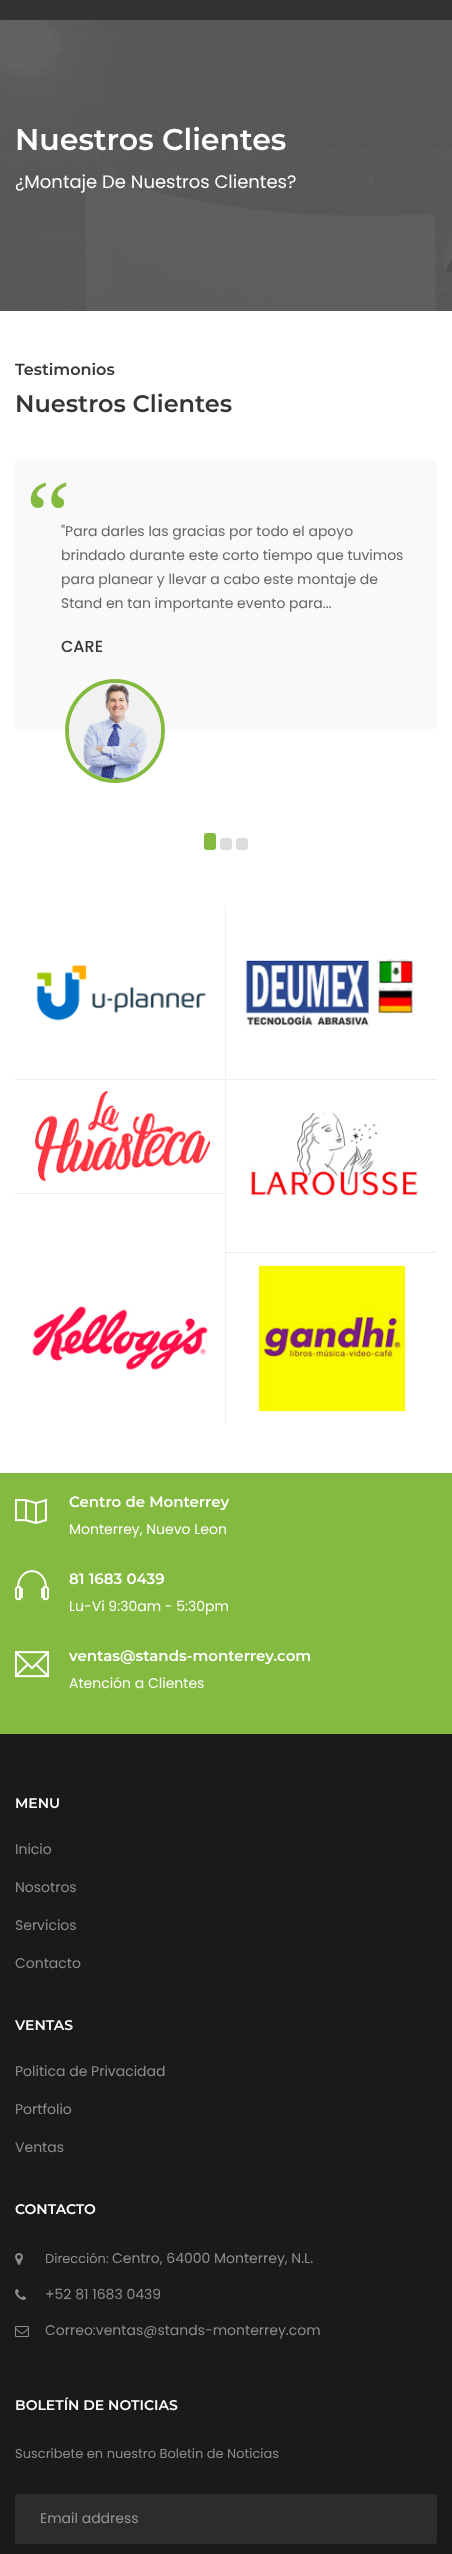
<svg xmlns="http://www.w3.org/2000/svg" width="452" height="2554" viewBox="0 0 452 2554">
  <rect width="100%" height="100%" fill="#ffffff"/>
  <rect x="0" y="0" width="452" height="20" fill="#323232"/>
  <image x="18" y="0" width="147" height="1" href="img1.png"/>
  <image x="0" y="20" width="452" height="291" href="img2.png"/>
  <text x="15" y="150" font-family="Montserrat" font-size="30" font-weight="600" fill="#ffffff">Nuestros Clientes</text>
  <text x="15" y="188" font-family="Poppins" font-size="18" fill="#ffffff">¿Montaje De Nuestros Clientes?</text>
  <text x="15" y="375" font-family="Montserrat" font-size="16" font-weight="600" fill="#363636">Testimonios</text>
  <text x="15" y="412" font-family="Montserrat" font-size="24" font-weight="600" fill="#363636">Nuestros Clientes</text>
  <rect x="15" y="459" width="422" height="270" fill="#f9f9f9"/>
  <text x="26" y="549" font-family="Liberation Serif" font-size="100" fill="#84ba3f">“</text>
  <text x="61" y="536" font-family="Poppins" font-size="14" fill="#656565">"Para darles las gracias por todo el apoyo</text>
  <text x="61" y="560" font-family="Poppins" font-size="14" fill="#656565">brindado durante este corto tiempo que tuvimos</text>
  <text x="61" y="584" font-family="Poppins" font-size="14" fill="#656565">para planear y llevar a cabo este montaje de</text>
  <text x="61" y="608" font-family="Poppins" font-size="14" fill="#656565">Stand en tan importante evento para...</text>
  <text x="61" y="652" font-family="Poppins" font-size="16" font-weight="500" fill="#363636">CARE</text>
  <path d="M115 681C141.5 681 163 703.5 163 731C163 758.5 141.5 781 115 781C88.5 781 67 758.5 67 731C67 703.5 88.5 681 115 681Z" fill="none" stroke="#84ba3f" stroke-width="4"/>
  <image x="69" y="683" width="92" height="96" href="img3.png"/>
  <rect x="204" y="833" width="12" height="17" rx="3" fill="#84ba3f"/>
  <rect x="220" y="838" width="12" height="12" rx="3" fill="#dddddd"/>
  <rect x="236" y="838" width="12" height="12" rx="3" fill="#dddddd"/>
  <rect x="225" y="906" width="1" height="173" fill="#eeeeee"/>
  <image x="245" y="959" width="170" height="69" href="img4.png"/>
  <image x="36" y="964" width="170" height="57" href="img5.png"/>
  <rect x="15" y="1079" width="422" height="1" fill="#eeeeee"/>
  <image x="35" y="1091" width="176" height="91" href="img6.png"/>
  <rect x="15" y="1193" width="211" height="1" fill="#eeeeee"/>
  <rect x="225" y="1079" width="1" height="345" fill="#eeeeee"/>
  <image x="250" y="1112" width="168" height="84" href="img7.png"/>
  <rect x="226" y="1252" width="211" height="1" fill="#eeeeee"/>
  <image x="32" y="1306" width="176" height="64" href="img8.png"/>
  <image x="259" y="1265" width="147" height="147" href="img9.png"/>
  <rect x="0" y="1473" width="452" height="261" fill="#84ba3f"/>
  <image x="15" y="1498" width="32" height="26" href="img10.png"/>
  <text x="69" y="1507" font-family="Montserrat" font-size="15" font-weight="600" fill="#ffffff">Centro de Monterrey</text>
  <text x="69" y="1534" font-family="Poppins" font-size="14" fill="#ffffff">Monterrey, Nuevo Leon</text>
  <image x="15" y="1570" width="34" height="31" href="img11.png"/>
  <text x="69" y="1584" font-family="Montserrat" font-size="15" font-weight="600" fill="#ffffff">81 1683 0439</text>
  <text x="69" y="1611" font-family="Poppins" font-size="14" fill="#ffffff">Lu-Vi 9:30am - 5:30pm</text>
  <image x="15" y="1651" width="34" height="27" href="img12.png"/>
  <text x="69" y="1661" font-family="Montserrat" font-size="15" font-weight="600" fill="#ffffff">ventas@stands-monterrey.com</text>
  <text x="69" y="1688" font-family="Poppins" font-size="14" fill="#ffffff">Atención a Clientes</text>
  <rect x="0" y="1734" width="452" height="820" fill="#1a1a1a"/>
  <text x="15" y="1808" font-family="Montserrat" font-size="14" font-weight="600" fill="#ffffff">MENU</text>
  <text x="15" y="1854" font-family="Poppins" font-size="14" fill="#8d8d8d">Inicio</text>
  <text x="15" y="1892" font-family="Poppins" font-size="14" fill="#8d8d8d">Nosotros</text>
  <text x="15" y="1930" font-family="Poppins" font-size="14" fill="#8d8d8d">Servicios</text>
  <text x="15" y="1968" font-family="Poppins" font-size="14" fill="#8d8d8d">Contacto</text>
  <text x="15" y="2030" font-family="Montserrat" font-size="14" font-weight="600" fill="#ffffff">VENTAS</text>
  <text x="15" y="2076" font-family="Poppins" font-size="14" fill="#8d8d8d">Politica de Privacidad</text>
  <text x="15" y="2114" font-family="Poppins" font-size="14" fill="#8d8d8d">Portfolio</text>
  <text x="15" y="2152" font-family="Poppins" font-size="14" fill="#8d8d8d">Ventas</text>
  <text x="15" y="2214" font-family="Montserrat" font-size="14" font-weight="600" fill="#ffffff">CONTACTO</text>
  <image x="15" y="2253" width="8" height="12" href="img13.png"/>
  <text x="45" y="2263" font-family="Poppins" font-size="13" fill="#8d8d8d">Dirección:</text>
  <text x="112" y="2263" font-family="Poppins" font-size="14" fill="#8d8d8d">Centro, 64000 Monterrey, N.L.</text>
  <image x="15" y="2289" width="11" height="11" href="img14.png"/>
  <text x="45" y="2299" font-family="Poppins" font-size="14" fill="#8d8d8d">+52 81 1683 0439</text>
  <image x="15" y="2326" width="14" height="11" href="img15.png"/>
  <text x="45" y="2335" font-family="Poppins" font-size="14" fill="#8d8d8d">Correo:ventas@stands-monterrey.com</text>
  <text x="15" y="2410" font-family="Montserrat" font-size="14" font-weight="600" fill="#ffffff">BOLETÍN DE NOTICIAS</text>
  <text x="15" y="2458" font-family="Poppins" font-size="13" fill="#8d8d8d">Suscribete en nuestro Boletin de Noticias</text>
  <rect x="15" y="2494" width="422" height="50" rx="3" fill="#2c2c2c"/>
  <text x="40" y="2523" font-family="Poppins" font-size="14" fill="#969696">Email address</text>
</svg>
